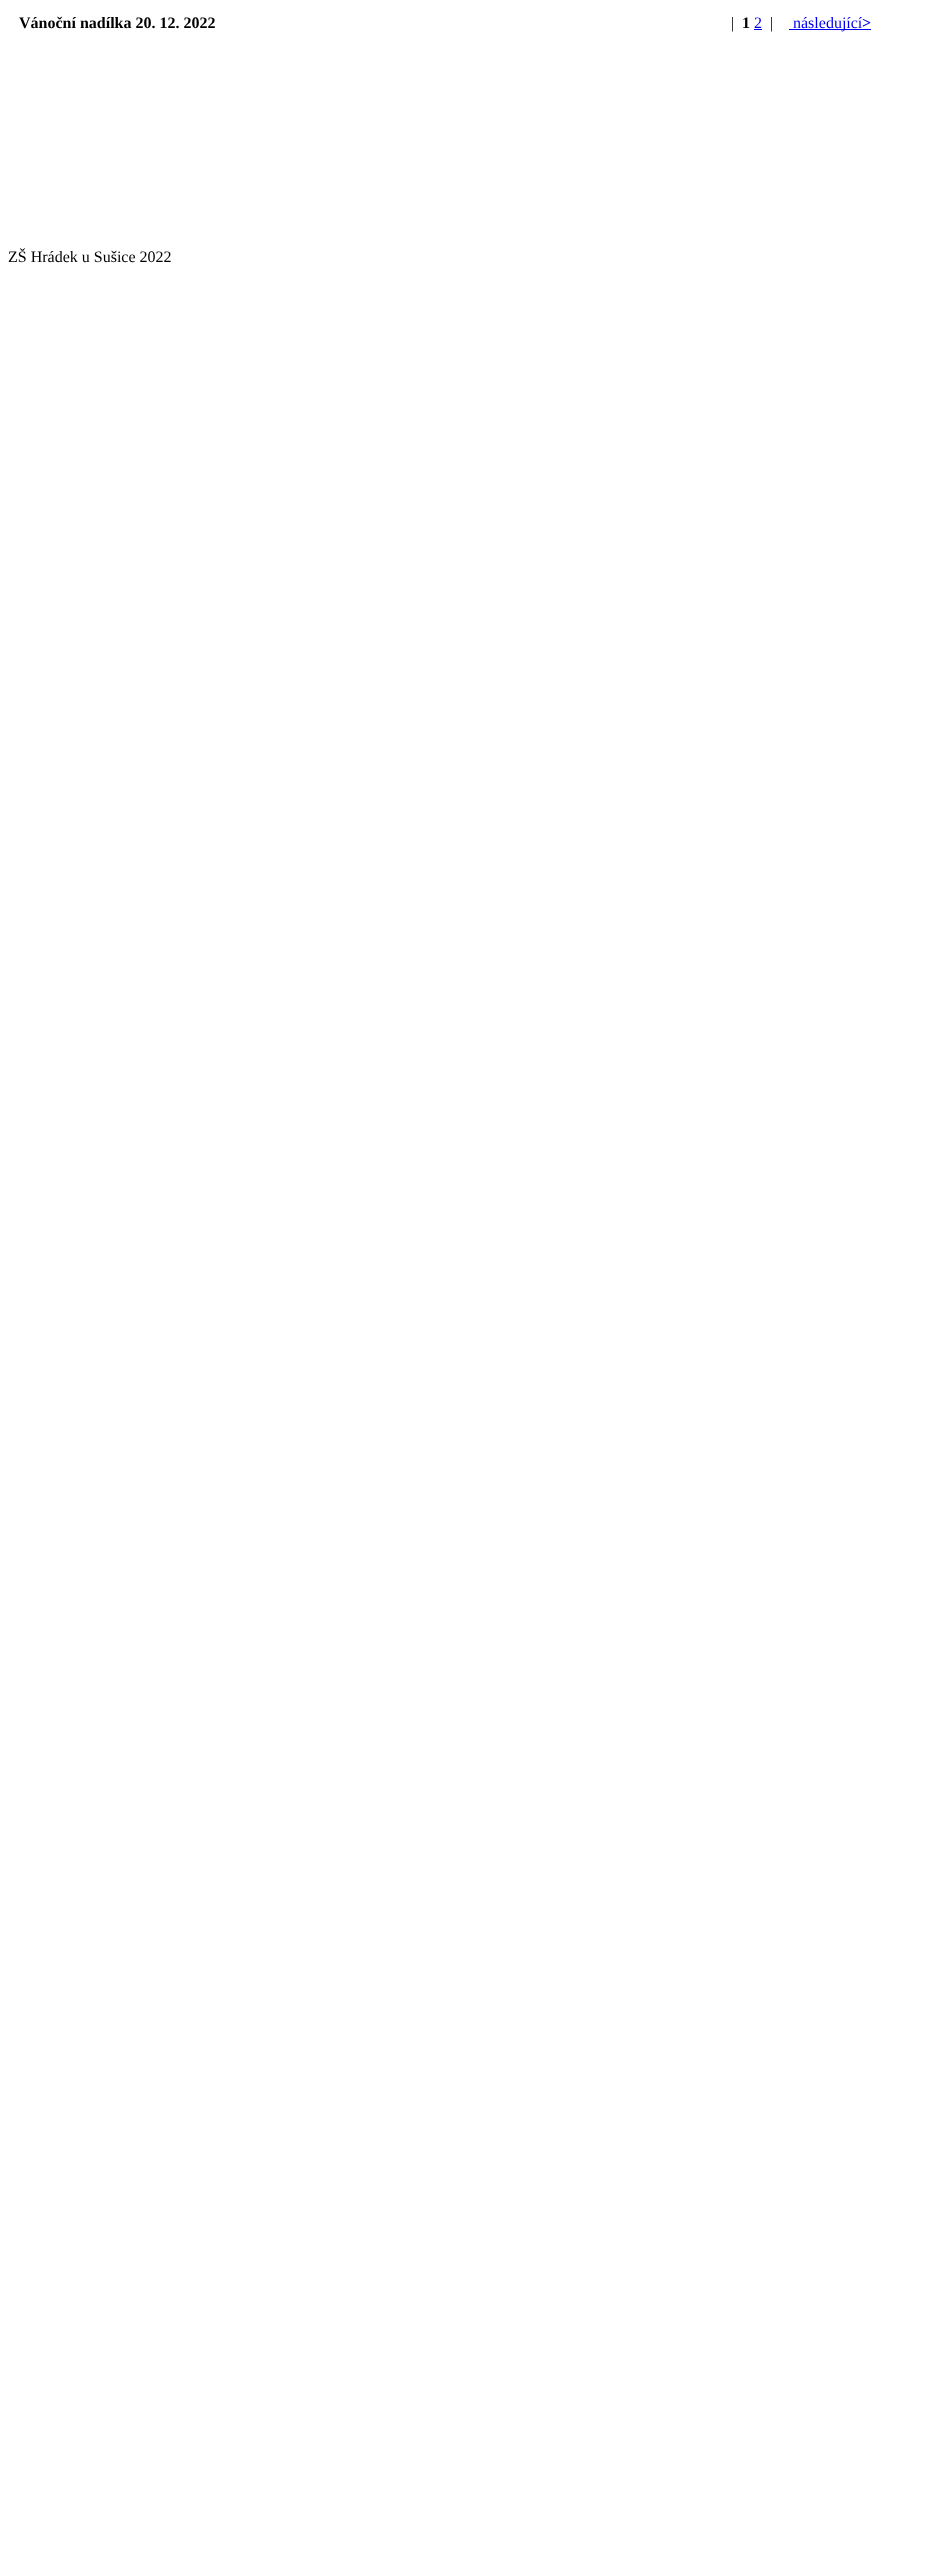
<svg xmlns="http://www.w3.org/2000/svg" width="929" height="2576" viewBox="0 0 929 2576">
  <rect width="100%" height="100%" fill="#ffffff"/>
  <text x="19" y="28" font-family="Liberation Serif" font-size="16" font-weight="bold" fill="#000000">Vánoční nadílka 20. 12. 2022</text>
  <text x="731" y="28" font-family="Liberation Serif" font-size="16" fill="#000000">|</text>
  <text x="742" y="28" font-family="Liberation Serif" font-size="16" font-weight="bold" fill="#000000">1</text>
  <text x="754" y="28" font-family="Liberation Serif" font-size="16" fill="#0000ee">2</text>
  <rect x="754" y="29" width="8" height="1" fill="#0000ee"/>
  <text x="770" y="28" font-family="Liberation Serif" font-size="16" fill="#000000">|</text>
  <rect x="789" y="29" width="82" height="1" fill="#0000ee"/>
  <text x="793" y="28" font-family="Liberation Serif" font-size="16" fill="#0000ee">následující</text>
  <text x="862" y="28" font-family="Liberation Serif" font-size="16" font-weight="bold" fill="#0000ee">&gt;</text>
  <text x="8" y="262" font-family="Liberation Serif" font-size="16" fill="#000000">ZŠ Hrádek u Sušice 2022</text>
</svg>
